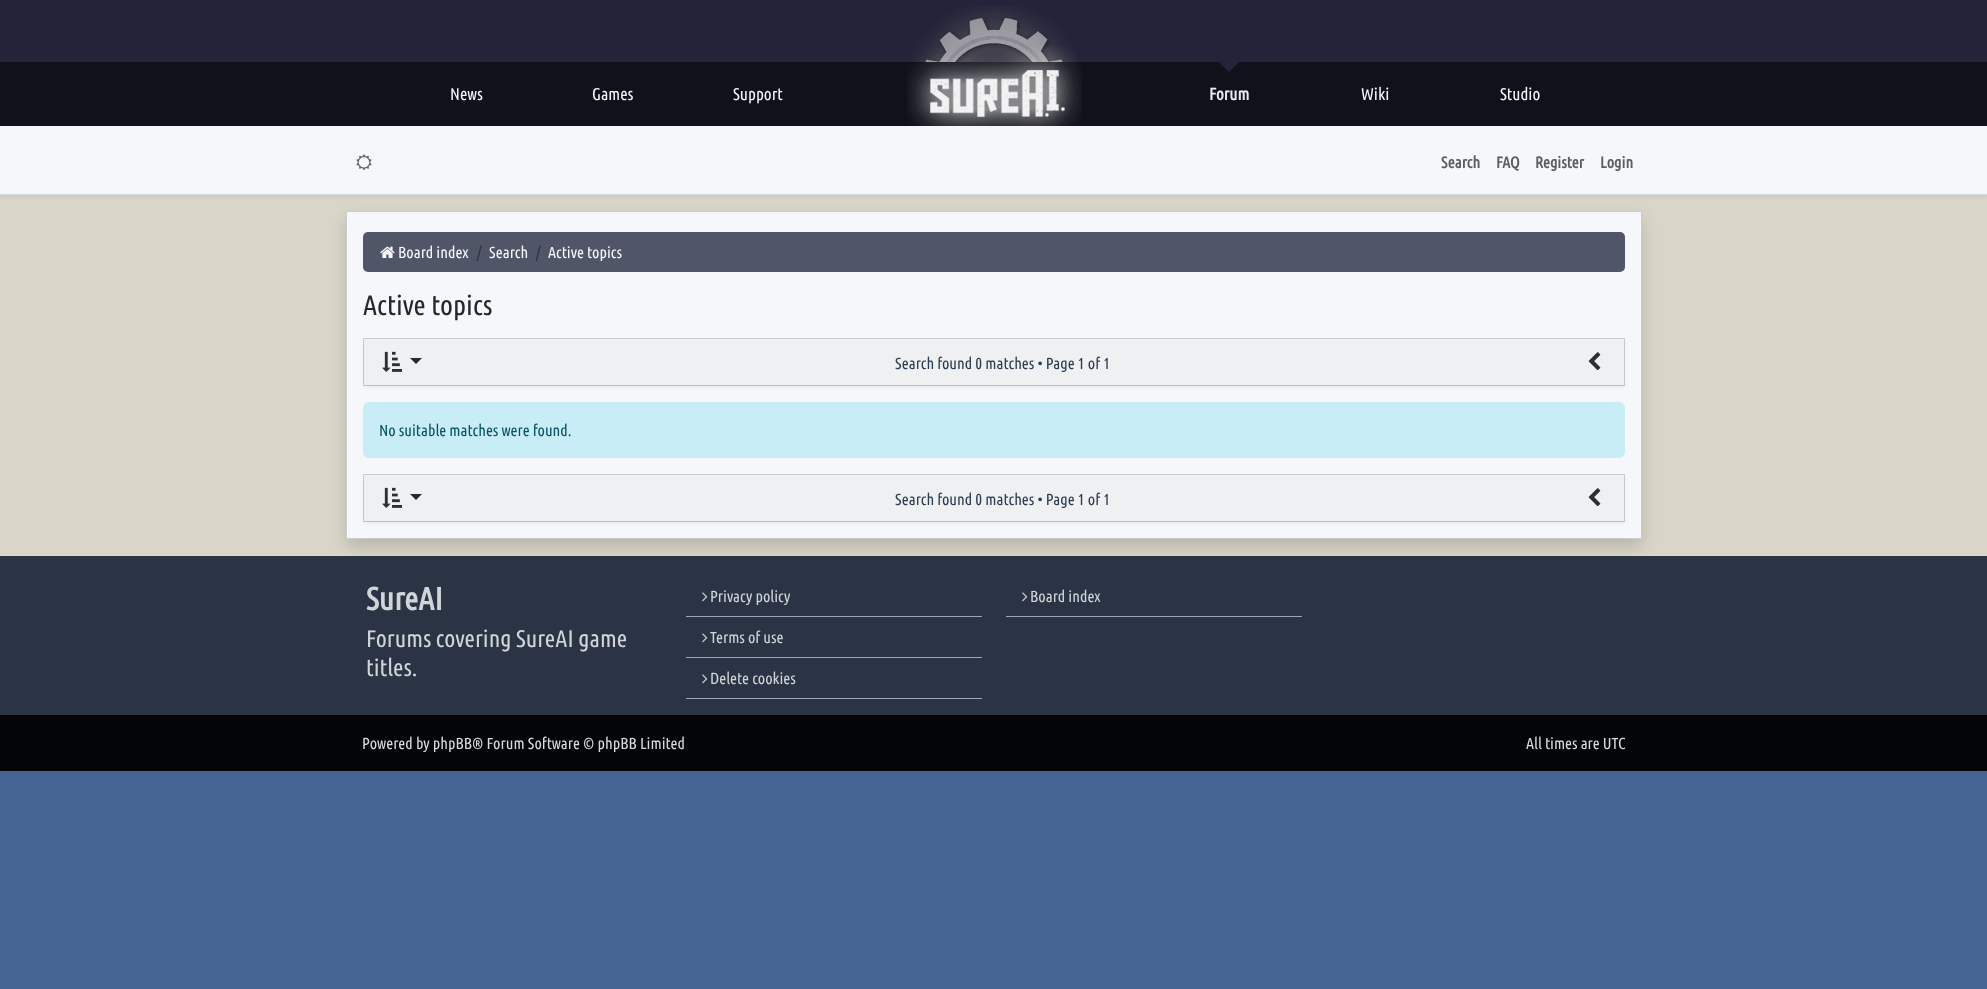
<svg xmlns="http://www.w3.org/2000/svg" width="1987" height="989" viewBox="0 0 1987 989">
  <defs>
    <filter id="blur1" x="-50%" y="-200%" width="200%" height="500%"><feGaussianBlur stdDeviation="2"/></filter>
    <filter id="blur2" x="-50%" y="-200%" width="200%" height="500%"><feGaussianBlur stdDeviation="8"/></filter>
  </defs>
  <rect width="100%" height="100%" fill="#466494"/>
  <rect x="0" y="195" width="1987" height="360" fill="#d9d5c8"/>
  <rect x="0" y="0" width="1987" height="62" fill="#23243a"/>
  <image x="913" y="5" width="163" height="57" href="img1.png"/>
  <image x="923" y="17" width="144" height="45" href="img2.png"/>
  <rect x="0" y="62" width="1987" height="64" fill="#10111b"/>
  <image x="907" y="46" width="175" height="80" href="img3.png"/>
  <text x="450" y="100" font-family="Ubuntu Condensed" font-size="17" fill="#f6f7fa">News</text>
  <text x="592" y="100" font-family="Ubuntu Condensed" font-size="17" fill="#f6f7fa">Games</text>
  <text x="733" y="100" font-family="Ubuntu Condensed" font-size="17" fill="#f6f7fa">Support</text>
  <path d="M1219 62H1239L1229 72Z" fill="#23243a"/>
  <text x="1209" y="100" font-family="Ubuntu Condensed" font-size="17" font-weight="bold" fill="#e9ebed">Forum</text>
  <text x="1361" y="100" font-family="Ubuntu Condensed" font-size="17" fill="#f6f7fa">Wiki</text>
  <text x="1500" y="100" font-family="Ubuntu Condensed" font-size="17" fill="#f6f7fa">Studio</text>
  <rect x="0" y="128" width="1987" height="69" fill="#040507" fill-opacity="0.07" filter="url(#blur1)"/>
  <rect x="0" y="126" width="1987" height="68" fill="#f6f7fa"/>
  <rect x="0" y="555" width="1987" height="1" fill="#d6dce2"/>
  <rect x="346" y="219" width="1296" height="328" fill="#040507" fill-opacity="0.15" filter="url(#blur2)"/>
  <rect x="0" y="194" width="1987" height="1" fill="#d6dce2"/>
  <image x="356" y="154" width="16" height="17" href="img4.png"/>
  <text x="1441" y="168" font-family="Ubuntu Condensed" font-size="16" font-weight="bold" fill="#5b5d61">Search</text>
  <text x="1496" y="168" font-family="Ubuntu Condensed" font-size="16" font-weight="bold" fill="#5b5d61">FAQ</text>
  <text x="1535" y="168" font-family="Ubuntu Condensed" font-size="16" font-weight="bold" fill="#5b5d61">Register</text>
  <text x="1600" y="168" font-family="Ubuntu Condensed" font-size="16" font-weight="bold" fill="#5b5d61">Login</text>
  <rect x="346.5" y="211.5" width="1295" height="327" fill="#f6f7fa" stroke="#cbcccf"/>
  <rect x="363" y="232" width="1262" height="40" rx="5" fill="#505568"/>
  <image x="380" y="246" width="15" height="12" href="img5.png"/>
  <text x="398" y="258" font-family="Ubuntu Condensed" font-size="16" fill="#f6f7fa">Board index</text>
  <text x="477" y="258" font-family="Ubuntu Condensed" font-size="16" fill="#2e333d">/</text>
  <text x="489" y="258" font-family="Ubuntu Condensed" font-size="16" fill="#f6f7fa">Search</text>
  <text x="536" y="258" font-family="Ubuntu Condensed" font-size="16" fill="#2e333d">/</text>
  <text x="548" y="258" font-family="Ubuntu Condensed" font-size="16" fill="#f6f7fa">Active topics</text>
  <text x="363" y="315" font-family="Ubuntu Condensed" font-size="28" fill="#23282e">Active topics</text>
  <rect x="363.5" y="338.5" width="1261" height="47" fill="none" stroke="#cbcccf"/>
  <rect x="364" y="341" width="1260" height="46" fill="#040507" fill-opacity="0.07" filter="url(#blur1)"/>
  <rect x="364" y="339" width="1260" height="46" fill="#eef0f2"/>
  <image x="382" y="351" width="20" height="21" href="img6.png"/>
  <path d="M410 358H422L416 364Z" fill="#23282e"/>
  <text x="895" y="369" font-family="Ubuntu Condensed" font-size="16" fill="#2f3d52">Search found 0 matches • Page 1 of 1</text>
  <image x="1588" y="352" width="13" height="19" href="img7.png"/>
  <rect x="363" y="402" width="1262" height="56" rx="6" fill="#c8edf7"/>
  <text x="379" y="436" font-family="Ubuntu Condensed" font-size="16" fill="#085263">No suitable matches were found.</text>
  <rect x="363.5" y="474.5" width="1261" height="47" fill="none" stroke="#cbcccf"/>
  <rect x="364" y="477" width="1260" height="46" fill="#040507" fill-opacity="0.07" filter="url(#blur1)"/>
  <rect x="364" y="475" width="1260" height="46" fill="#eef0f2"/>
  <image x="382" y="487" width="20" height="21" href="img6.png"/>
  <path d="M410 494H422L416 500Z" fill="#23282e"/>
  <text x="895" y="505" font-family="Ubuntu Condensed" font-size="16" fill="#2f3d52">Search found 0 matches • Page 1 of 1</text>
  <image x="1588" y="488" width="13" height="19" href="img7.png"/>
  <rect x="0" y="715" width="1987" height="56" fill="#040507"/>
  <rect x="0" y="556" width="1987" height="159" fill="#2a3444"/>
  <text x="366" y="610" font-family="Ubuntu Condensed" font-size="32" font-weight="bold" fill="#d1d4d9">SureAI</text>
  <text x="366" y="647" font-family="Ubuntu Condensed" font-size="24" fill="#d1d4d9">Forums covering SureAI game</text>
  <text x="366" y="676" font-family="Ubuntu Condensed" font-size="24" fill="#d1d4d9">titles.</text>
  <rect x="686" y="616" width="296" height="1" fill="#9ba7b4"/>
  <image x="702" y="592" width="6" height="10" href="img8.png"/>
  <text x="710" y="602" font-family="Ubuntu Condensed" font-size="16" fill="#d1d4d9">Privacy policy</text>
  <rect x="686" y="657" width="296" height="1" fill="#9ba7b4"/>
  <image x="702" y="633" width="6" height="10" href="img8.png"/>
  <text x="710" y="643" font-family="Ubuntu Condensed" font-size="16" fill="#d1d4d9">Terms of use</text>
  <rect x="686" y="698" width="296" height="1" fill="#9ba7b4"/>
  <image x="702" y="674" width="6" height="10" href="img8.png"/>
  <text x="710" y="684" font-family="Ubuntu Condensed" font-size="16" fill="#d1d4d9">Delete cookies</text>
  <rect x="1006" y="616" width="296" height="1" fill="#9ba7b4"/>
  <image x="1022" y="592" width="6" height="10" href="img8.png"/>
  <text x="1030" y="602" font-family="Ubuntu Condensed" font-size="16" fill="#d1d4d9">Board index</text>
  <text x="362" y="749" font-family="Ubuntu Condensed" font-size="16" fill="#d8dadc">Powered by phpBB® Forum Software © phpBB Limited</text>
  <text x="1526" y="749" font-family="Ubuntu Condensed" font-size="16" fill="#d8dadc">All times are UTC</text>
</svg>
